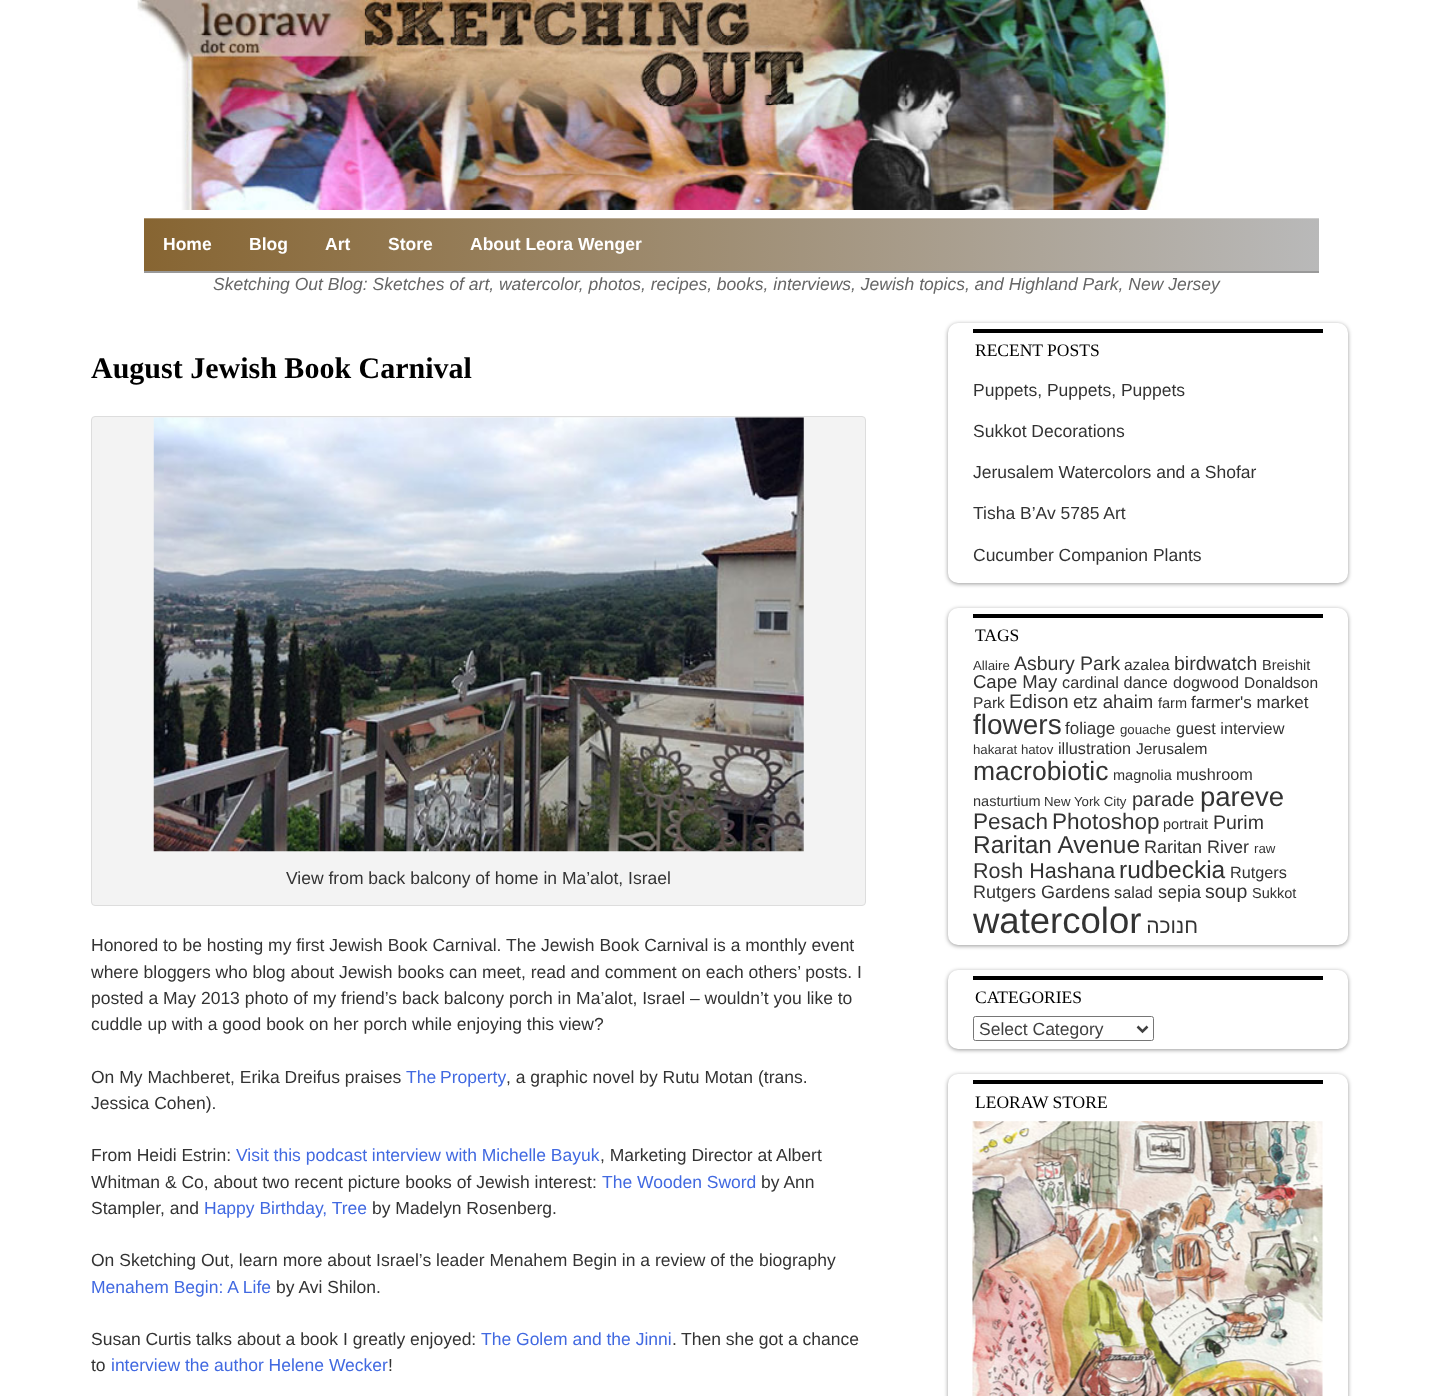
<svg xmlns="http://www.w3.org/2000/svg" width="1432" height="1396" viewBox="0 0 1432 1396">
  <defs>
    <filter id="blur1" x="-50%" y="-200%" width="200%" height="500%"><feGaussianBlur stdDeviation="0.5"/></filter>
    <linearGradient id="g1" gradientUnits="userSpaceOnUse" x1="1319" y1="244" x2="144" y2="244"><stop offset="0" stop-color="#b9b9b9"/><stop offset="1" stop-color="#876532"/></linearGradient>
    <filter id="blur2" x="-50%" y="-200%" width="200%" height="500%"><feGaussianBlur stdDeviation="2"/></filter>
  </defs>
  <rect width="100%" height="100%" fill="#ffffff"/>
  <image x="137" y="0" width="1032" height="210" href="img1.png"/>
  <rect x="144" y="219" width="1175" height="54" fill="#000000" fill-opacity="0.4" filter="url(#blur1)"/>
  <rect x="144" y="218" width="1175" height="53" fill="url(#g1)"/>
  <rect x="144" y="218" width="1175" height="1" fill="#ffffff" fill-opacity="0.3"/>
  <text x="163" y="250" font-family="Liberation Sans" font-size="17.5" font-weight="bold" fill="#ffffff">Home</text>
  <text x="249" y="250" font-family="Liberation Sans" font-size="17.5" font-weight="bold" fill="#ffffff">Blog</text>
  <text x="325" y="250" font-family="Liberation Sans" font-size="17.5" font-weight="bold" fill="#ffffff">Art</text>
  <text x="388" y="250" font-family="Liberation Sans" font-size="17.5" font-weight="bold" fill="#ffffff">Store</text>
  <text x="470" y="250" font-family="Liberation Sans" font-size="17.5" font-weight="bold" fill="#ffffff">About Leora Wenger</text>
  <text x="213" y="290" font-family="Liberation Sans" font-size="17.5" font-style="italic" fill="#666666">Sketching Out Blog: Sketches of art, watercolor, photos, recipes, books, interviews, Jewish topics, and Highland Park, New Jersey</text>
  <text x="91" y="378" font-family="Liberation Serif" font-size="30" font-weight="bold" fill="#000000">August Jewish Book Carnival</text>
  <rect x="91.5" y="416.5" width="774" height="489" rx="3.5" fill="#f3f3f3" stroke="#dddddd"/>
  <image x="153" y="417" width="651" height="435" href="img2.png"/>
  <text x="286" y="884" font-family="Liberation Sans" font-size="17.5" fill="#333333">View from back balcony of home in Ma’alot, Israel</text>
  <text x="91" y="951" font-family="Liberation Sans" font-size="17.5" fill="#333333">Honored to be hosting my first Jewish Book Carnival. The Jewish Book Carnival is a monthly event</text>
  <text x="91" y="978" font-family="Liberation Sans" font-size="17.5" fill="#333333">where bloggers who blog about Jewish books can meet, read and comment on each others’ posts. I</text>
  <text x="91" y="1004" font-family="Liberation Sans" font-size="17.5" fill="#333333">posted a May 2013 photo of my friend’s back balcony porch in Ma’alot, Israel – wouldn’t you like to</text>
  <text x="91" y="1030" font-family="Liberation Sans" font-size="17.5" fill="#333333">cuddle up with a good book on her porch while enjoying this view?</text>
  <text x="91" y="1083" font-family="Liberation Sans" font-size="17.5" fill="#333333">On My Machberet, Erika Dreifus praises</text>
  <text x="406" y="1083" word-spacing="-1" font-family="Liberation Sans" font-size="17.5" fill="#4169e1">The Property</text>
  <text x="506" y="1083" font-family="Liberation Sans" font-size="17.5" fill="#333333">, a graphic novel by Rutu Motan (trans.</text>
  <text x="91" y="1109" font-family="Liberation Sans" font-size="17.5" fill="#333333">Jessica Cohen).</text>
  <text x="91" y="1161" font-family="Liberation Sans" font-size="17.5" fill="#333333">From Heidi Estrin:</text>
  <text x="236" y="1161" font-family="Liberation Sans" font-size="17.5" fill="#4169e1">Visit this podcast interview with Michelle Bayuk</text>
  <text x="600" y="1161" font-family="Liberation Sans" font-size="17.5" fill="#333333">, Marketing Director at Albert</text>
  <text x="91" y="1188" font-family="Liberation Sans" font-size="17.5" fill="#333333">Whitman &amp; Co, about two recent picture books of Jewish interest:</text>
  <text x="602" y="1188" font-family="Liberation Sans" font-size="17.5" fill="#4169e1">The Wooden Sword</text>
  <text x="761" y="1188" font-family="Liberation Sans" font-size="17.5" fill="#333333">by Ann</text>
  <text x="91" y="1214" font-family="Liberation Sans" font-size="17.5" fill="#333333">Stampler, and</text>
  <text x="204" y="1214" font-family="Liberation Sans" font-size="17.5" fill="#4169e1">Happy Birthday, Tree</text>
  <text x="372" y="1214" font-family="Liberation Sans" font-size="17.5" fill="#333333">by Madelyn Rosenberg.</text>
  <text x="91" y="1266" font-family="Liberation Sans" font-size="17.5" fill="#333333">On Sketching Out, learn more about Israel’s leader Menahem Begin in a review of the biography</text>
  <text x="91" y="1293" font-family="Liberation Sans" font-size="17.5" fill="#4169e1">Menahem Begin: A Life</text>
  <text x="276" y="1293" font-family="Liberation Sans" font-size="17.5" fill="#333333">by Avi Shilon.</text>
  <text x="91" y="1345" font-family="Liberation Sans" font-size="17.5" fill="#333333">Susan Curtis talks about a book I greatly enjoyed:</text>
  <text x="481" y="1345" font-family="Liberation Sans" font-size="17.5" fill="#4169e1">The Golem and the Jinni</text>
  <text x="672" y="1345" font-family="Liberation Sans" font-size="17.5" fill="#333333">.</text>
  <text x="681" y="1345" font-family="Liberation Sans" font-size="17.5" fill="#333333">Then she got a chance</text>
  <text x="91" y="1371" font-family="Liberation Sans" font-size="17.5" fill="#333333">to</text>
  <text x="111" y="1371" font-family="Liberation Sans" font-size="17.5" fill="#4169e1">interview the author Helene Wecker</text>
  <text x="388" y="1371" font-family="Liberation Sans" font-size="17.5" fill="#333333">!</text>
  <rect x="948" y="324" width="400" height="260" rx="10" fill="#000000" fill-opacity="0.4" filter="url(#blur2)"/>
  <rect x="948" y="323" width="400" height="260" rx="10" fill="#ffffff"/>
  <rect x="973" y="329" width="350" height="4" fill="#000000"/>
  <text x="975" y="356" font-family="Liberation Serif" font-size="17.5" fill="#000000">RECENT POSTS</text>
  <text x="973" y="396" font-family="Liberation Sans" font-size="17.5" fill="#333333">Puppets, Puppets, Puppets</text>
  <text x="973" y="437" font-family="Liberation Sans" font-size="17.5" fill="#333333">Sukkot Decorations</text>
  <text x="973" y="478" font-family="Liberation Sans" font-size="17.5" fill="#333333">Jerusalem Watercolors and a Shofar</text>
  <text x="973" y="519" font-family="Liberation Sans" font-size="17.5" fill="#333333">Tisha B’Av 5785 Art</text>
  <text x="973" y="561" font-family="Liberation Sans" font-size="17.5" fill="#333333">Cucumber Companion Plants</text>
  <rect x="948" y="609" width="400" height="337" rx="10" fill="#000000" fill-opacity="0.4" filter="url(#blur2)"/>
  <rect x="948" y="608" width="400" height="337" rx="10" fill="#ffffff"/>
  <rect x="973" y="614" width="350" height="4" fill="#000000"/>
  <text x="975" y="641" font-family="Liberation Serif" font-size="17.5" fill="#000000">TAGS</text>
  <text x="973" y="670" font-family="Liberation Sans" font-size="13.25" fill="#333333">Allaire</text>
  <text x="1014" y="670" font-family="Liberation Sans" font-size="19.5" fill="#333333">Asbury Park</text>
  <text x="1124" y="670" font-family="Liberation Sans" font-size="15.5" fill="#333333">azalea</text>
  <text x="1174" y="670" font-family="Liberation Sans" font-size="19.5" fill="#333333">birdwatch</text>
  <text x="1262" y="670" font-family="Liberation Sans" font-size="14.5" fill="#333333">Breishit</text>
  <text x="973" y="688" font-family="Liberation Sans" font-size="18.5" fill="#333333">Cape May</text>
  <text x="1062" y="688" font-family="Liberation Sans" font-size="16.25" fill="#333333">cardinal dance</text>
  <text x="1173" y="688" font-family="Liberation Sans" font-size="16.25" fill="#333333">dogwood</text>
  <text x="1244" y="688" font-family="Liberation Sans" font-size="15.5" fill="#333333">Donaldson</text>
  <text x="973" y="708" font-family="Liberation Sans" font-size="15.5" fill="#333333">Park</text>
  <text x="1009" y="708" font-family="Liberation Sans" font-size="19.5" fill="#333333">Edison</text>
  <text x="1073" y="708" font-family="Liberation Sans" font-size="18.5" fill="#333333">etz ahaim</text>
  <text x="1158" y="708" font-family="Liberation Sans" font-size="14.5" fill="#333333">farm</text>
  <text x="1191" y="708" font-family="Liberation Sans" font-size="17" fill="#333333">farmer's market</text>
  <text x="973" y="734" font-family="Liberation Sans" font-size="28" fill="#333333">flowers</text>
  <text x="1065" y="734" font-family="Liberation Sans" font-size="17" fill="#333333">foliage</text>
  <text x="1120" y="734" font-family="Liberation Sans" font-size="13.25" fill="#333333">gouache</text>
  <text x="1176" y="734" font-family="Liberation Sans" font-size="16.25" fill="#333333">guest interview</text>
  <text x="973" y="754" font-family="Liberation Sans" font-size="13.25" fill="#333333">hakarat hatov</text>
  <text x="1058" y="754" font-family="Liberation Sans" font-size="16.25" fill="#333333">illustration</text>
  <text x="1136" y="754" font-family="Liberation Sans" font-size="15.5" fill="#333333">Jerusalem</text>
  <text x="973" y="780" font-family="Liberation Sans" font-size="26.5" fill="#333333">macrobiotic</text>
  <text x="1113" y="780" font-family="Liberation Sans" font-size="14.5" fill="#333333">magnolia</text>
  <text x="1176" y="780" font-family="Liberation Sans" font-size="16.25" fill="#333333">mushroom</text>
  <text x="973" y="806" font-family="Liberation Sans" font-size="14.5" fill="#333333">nasturtium</text>
  <text x="1044" y="806" font-family="Liberation Sans" font-size="13.25" fill="#333333">New York City</text>
  <text x="1132" y="806" font-family="Liberation Sans" font-size="20" fill="#333333">parade</text>
  <text x="1200" y="806" font-family="Liberation Sans" font-size="27.5" fill="#333333">pareve</text>
  <text x="973" y="829" font-family="Liberation Sans" font-size="22.5" fill="#333333">Pesach</text>
  <text x="1052" y="829" font-family="Liberation Sans" font-size="22.5" fill="#333333">Photoshop</text>
  <text x="1163" y="829" font-family="Liberation Sans" font-size="14.5" fill="#333333">portrait</text>
  <text x="1213" y="829" font-family="Liberation Sans" font-size="19.5" fill="#333333">Purim</text>
  <text x="973" y="853" font-family="Liberation Sans" font-size="24.5" fill="#333333">Raritan Avenue</text>
  <text x="1144" y="853" font-family="Liberation Sans" font-size="18" fill="#333333">Raritan River</text>
  <text x="1254" y="853" font-family="Liberation Sans" font-size="13.25" fill="#333333">raw</text>
  <text x="973" y="878" font-family="Liberation Sans" font-size="21.5" fill="#333333">Rosh Hashana</text>
  <text x="1119" y="878" font-family="Liberation Sans" font-size="24.5" fill="#333333">rudbeckia</text>
  <text x="1230" y="878" font-family="Liberation Sans" font-size="16.25" fill="#333333">Rutgers</text>
  <text x="973" y="898" font-family="Liberation Sans" font-size="18" fill="#333333">Rutgers Gardens</text>
  <text x="1114" y="898" font-family="Liberation Sans" font-size="16.25" fill="#333333">salad</text>
  <text x="1158" y="898" font-family="Liberation Sans" font-size="18" fill="#333333">sepia</text>
  <text x="1205" y="898" font-family="Liberation Sans" font-size="19.5" fill="#333333">soup</text>
  <text x="1252" y="898" font-family="Liberation Sans" font-size="14.5" fill="#333333">Sukkot</text>
  <text x="973" y="933" font-family="Liberation Sans" font-size="36.5" fill="#333333">watercolor</text>
  <text x="1198" y="933" font-family="Liberation Sans" font-size="21" direction="rtl" fill="#333333">חנוכה</text>
  <rect x="948" y="971" width="400" height="79" rx="10" fill="#000000" fill-opacity="0.4" filter="url(#blur2)"/>
  <rect x="948" y="970" width="400" height="79" rx="10" fill="#ffffff"/>
  <rect x="973" y="976" width="350" height="4" fill="#000000"/>
  <text x="975" y="1003" font-family="Liberation Serif" font-size="17.5" fill="#000000">CATEGORIES</text>
  <rect x="973.5" y="1016.5" width="180" height="24" rx="2" fill="none" stroke="#767676"/>
  <path d="M1137.5 1026.5L1142.5 1031.5L1147.5 1026.5" fill="none" stroke="#404040" stroke-width="2.5"/>
  <text x="979" y="1035" font-family="Liberation Sans" font-size="17.5" fill="#404040">Select Category</text>
  <rect x="948" y="1075" width="400" height="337" rx="10" fill="#000000" fill-opacity="0.4" filter="url(#blur2)"/>
  <rect x="948" y="1074" width="400" height="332" rx="10" fill="#ffffff"/>
  <rect x="973" y="1080" width="350" height="4" fill="#000000"/>
  <text x="975" y="1108" font-family="Liberation Serif" font-size="17.5" fill="#000000">LEORAW STORE</text>
  <image x="972" y="1121" width="351" height="275" href="img3.png"/>
</svg>
